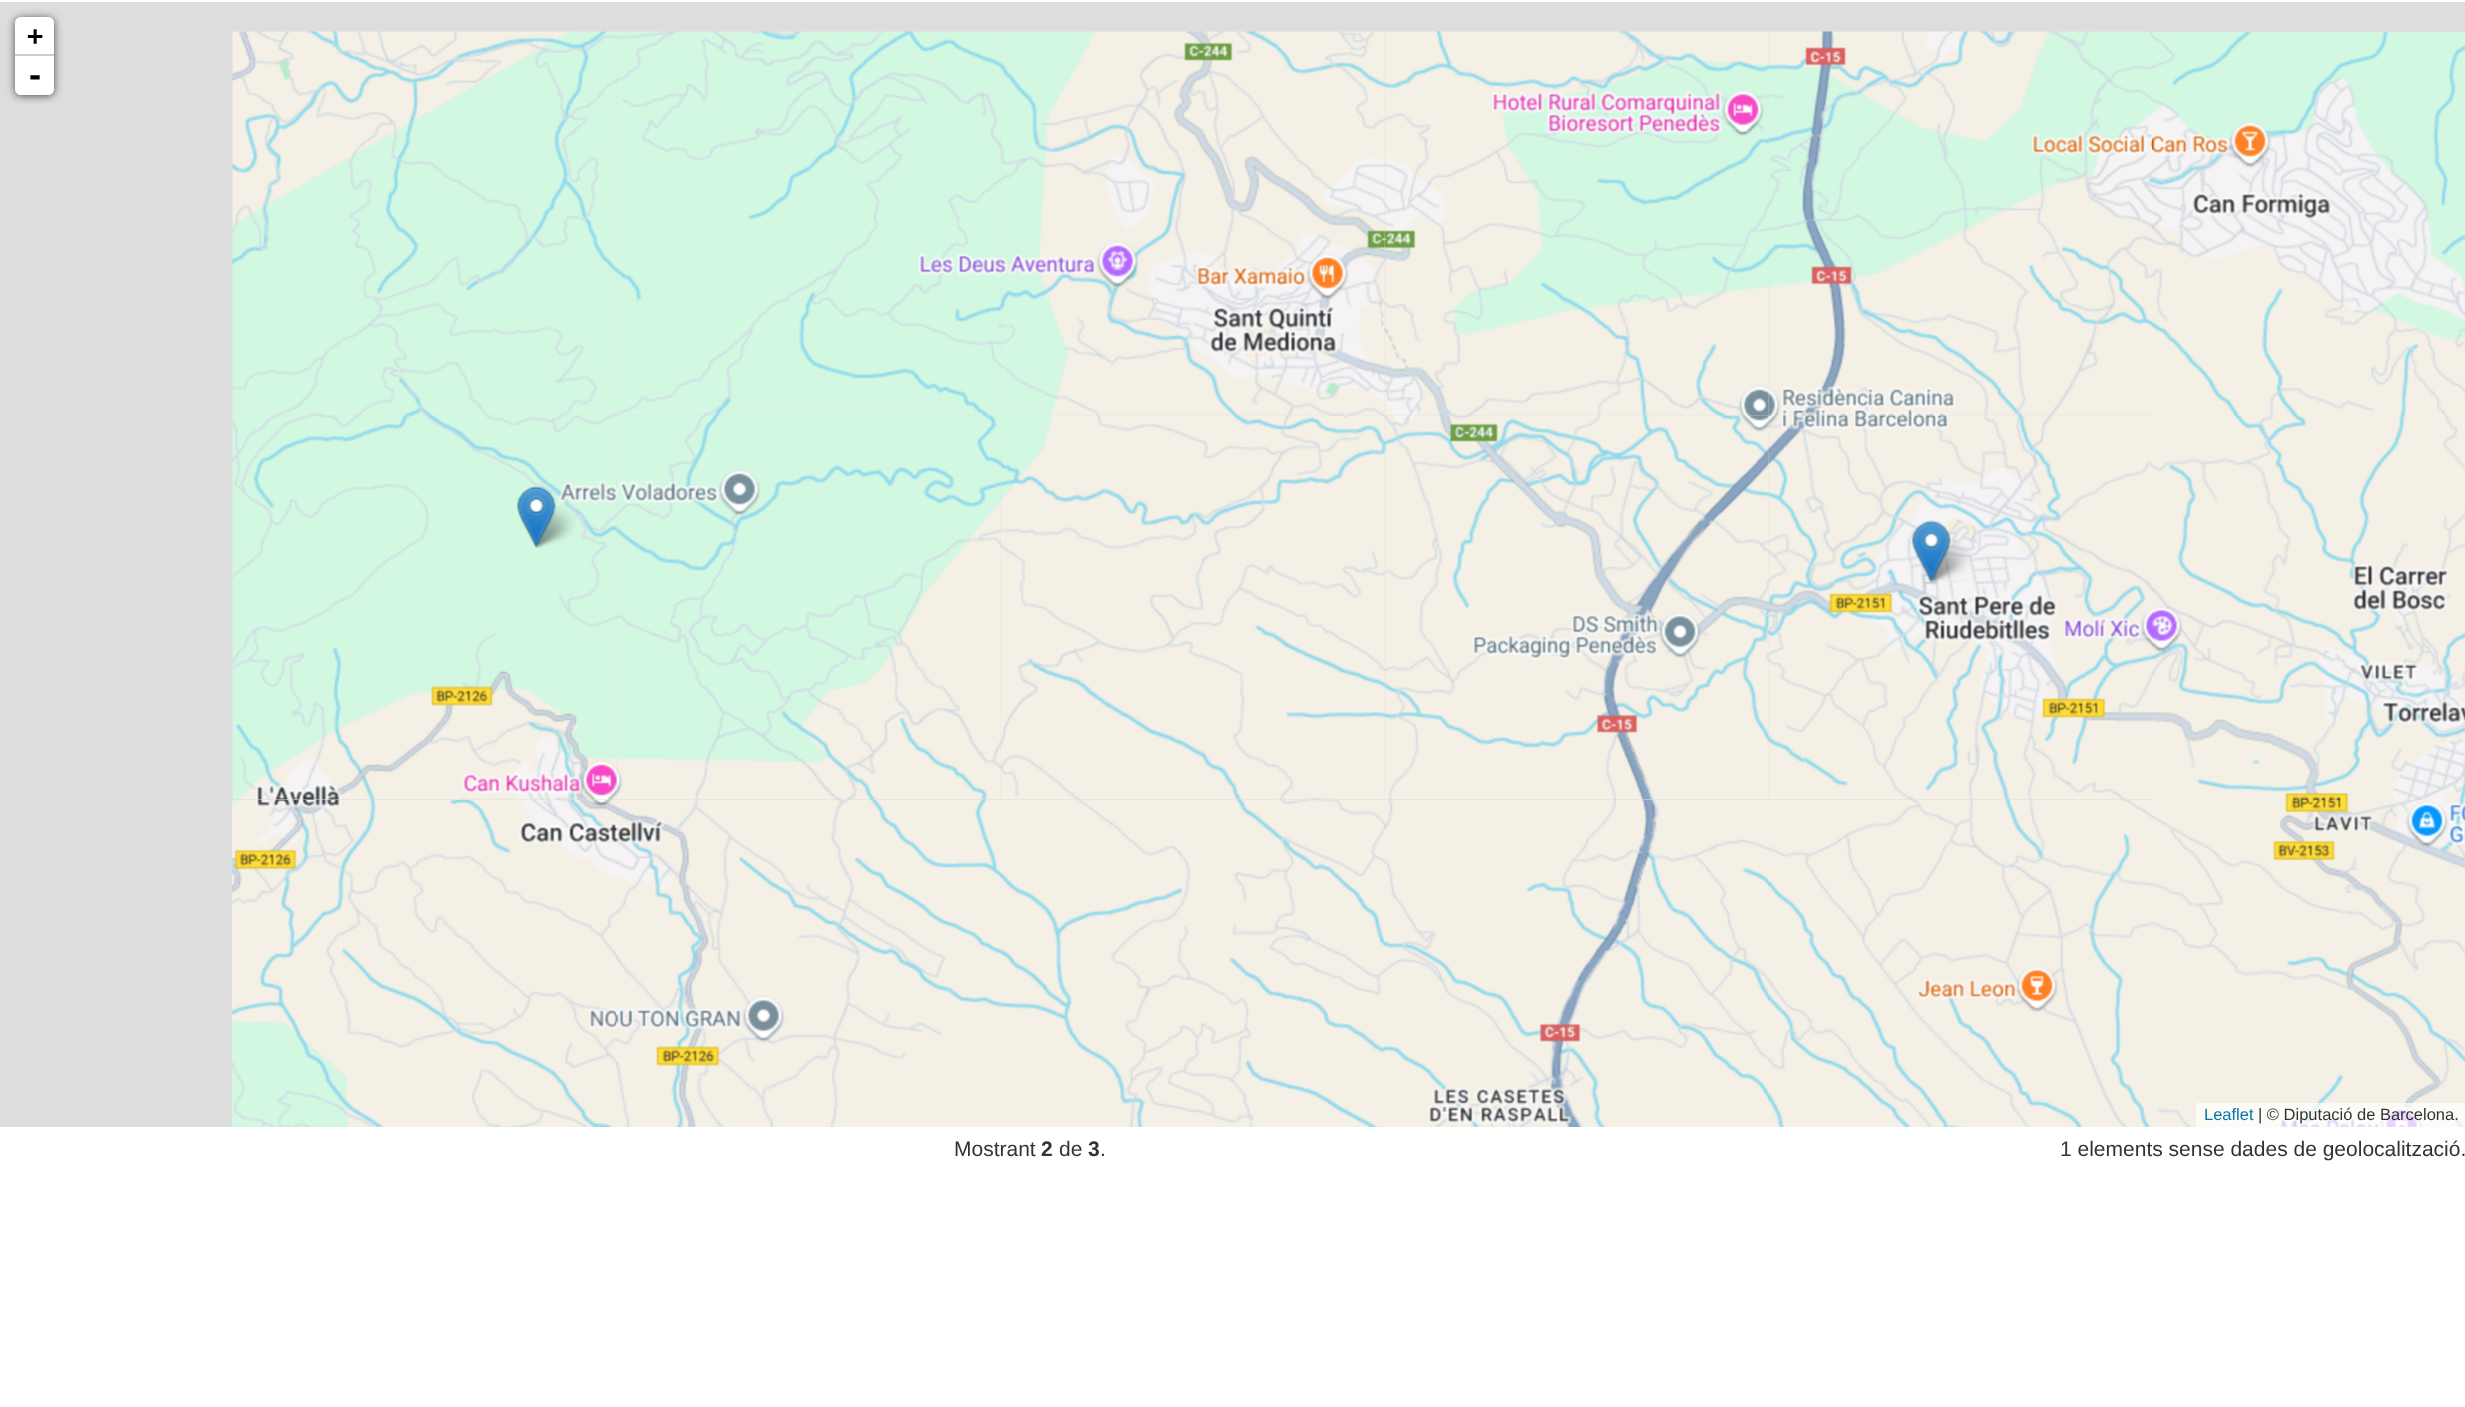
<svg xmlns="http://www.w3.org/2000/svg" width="2465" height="1407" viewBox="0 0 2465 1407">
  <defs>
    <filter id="blur1" x="-50%" y="-200%" width="200%" height="500%"><feGaussianBlur stdDeviation="4"/></filter>
  </defs>
  <rect width="100%" height="100%" fill="#ffffff"/>
  <rect x="0" y="2" width="2465" height="1125" fill="#dddddd"/>
  <rect x="15" y="18" width="39" height="78" rx="6" fill="#000000" fill-opacity="0.65" filter="url(#blur1)"/>
  <path d="M21 17H48C51.5 17 54 19.5 54 23V56H15V23C15 19.5 17.5 17 21 17Z" fill="#ffffff"/>
  <rect x="15" y="54" width="39" height="2" fill="#cccccc"/>
  <text x="27" y="45" font-family="DejaVu Sans Mono" font-size="27" font-weight="bold" fill="#000000">+</text>
  <path d="M15 56H54V89C54 92.5 51.5 95 48 95H21C17.5 95 15 92.5 15 89Z" fill="#ffffff"/>
  <text x="26" y="86" font-family="DejaVu Sans Mono" font-size="30" font-weight="bold" fill="#000000">-</text>
  <image x="2152" y="800" width="313" height="327" href="img18.png"/>
  <rect x="2196" y="1103" width="269" height="24" fill="#ffffff" fill-opacity="0.7"/>
  <text x="2204" y="1120" font-family="Liberation Sans" font-size="16.5" fill="#0078a8">Leaflet</text>
  <text x="2258" y="1120" font-family="Liberation Sans" font-size="16.5" fill="#333333">| © Diputació de Barcelona.</text>
  <image x="1000" y="415" width="385" height="385" href="img9.png"/>
  <image x="1000" y="31" width="385" height="385" href="img3.png"/>
  <image x="616" y="415" width="385" height="385" href="img8.png"/>
  <image x="616" y="31" width="385" height="385" href="img2.png"/>
  <image x="232" y="415" width="385" height="385" href="img7.png"/>
  <image x="232" y="31" width="385" height="385" href="img1.png"/>
  <image x="1384" y="415" width="385" height="385" href="img10.png"/>
  <image x="1384" y="31" width="385" height="385" href="img4.png"/>
  <image x="1768" y="415" width="384" height="385" href="img11.png"/>
  <image x="1768" y="31" width="385" height="385" href="img5.png"/>
  <image x="2152" y="32" width="313" height="384" href="img6.png"/>
  <image x="2152" y="416" width="313" height="384" href="img12.png"/>
  <image x="232" y="800" width="384" height="327" href="img13.png"/>
  <image x="616" y="800" width="384" height="327" href="img14.png"/>
  <image x="1000" y="800" width="384" height="327" href="img15.png"/>
  <image x="1384" y="800" width="384" height="327" href="img16.png"/>
  <image x="1768" y="800" width="384" height="327" href="img17.png"/>
  <image x="531" y="505" width="45" height="43" href="img21.png"/>
  <image x="517" y="486" width="39" height="62" href="img19.png"/>
  <image x="1926" y="539" width="45" height="44" href="img22.png"/>
  <image x="1912" y="520" width="39" height="63" href="img20.png"/>
  <text x="954" y="1156" font-family="Liberation Sans" font-size="21" fill="#333333">Mostrant</text>
  <text x="1041" y="1156" font-family="Liberation Sans" font-size="21" font-weight="bold" fill="#333333">2</text>
  <text x="1059" y="1156" font-family="Liberation Sans" font-size="21" fill="#333333">de</text>
  <text x="1088" y="1156" font-family="Liberation Sans" font-size="21" font-weight="bold" fill="#333333">3</text>
  <text x="1100" y="1156" font-family="Liberation Sans" font-size="21" fill="#333333">.</text>
  <text x="2060" y="1156" font-family="Liberation Sans" font-size="21" fill="#333333">1 elements sense dades de geolocalització.</text>
</svg>
